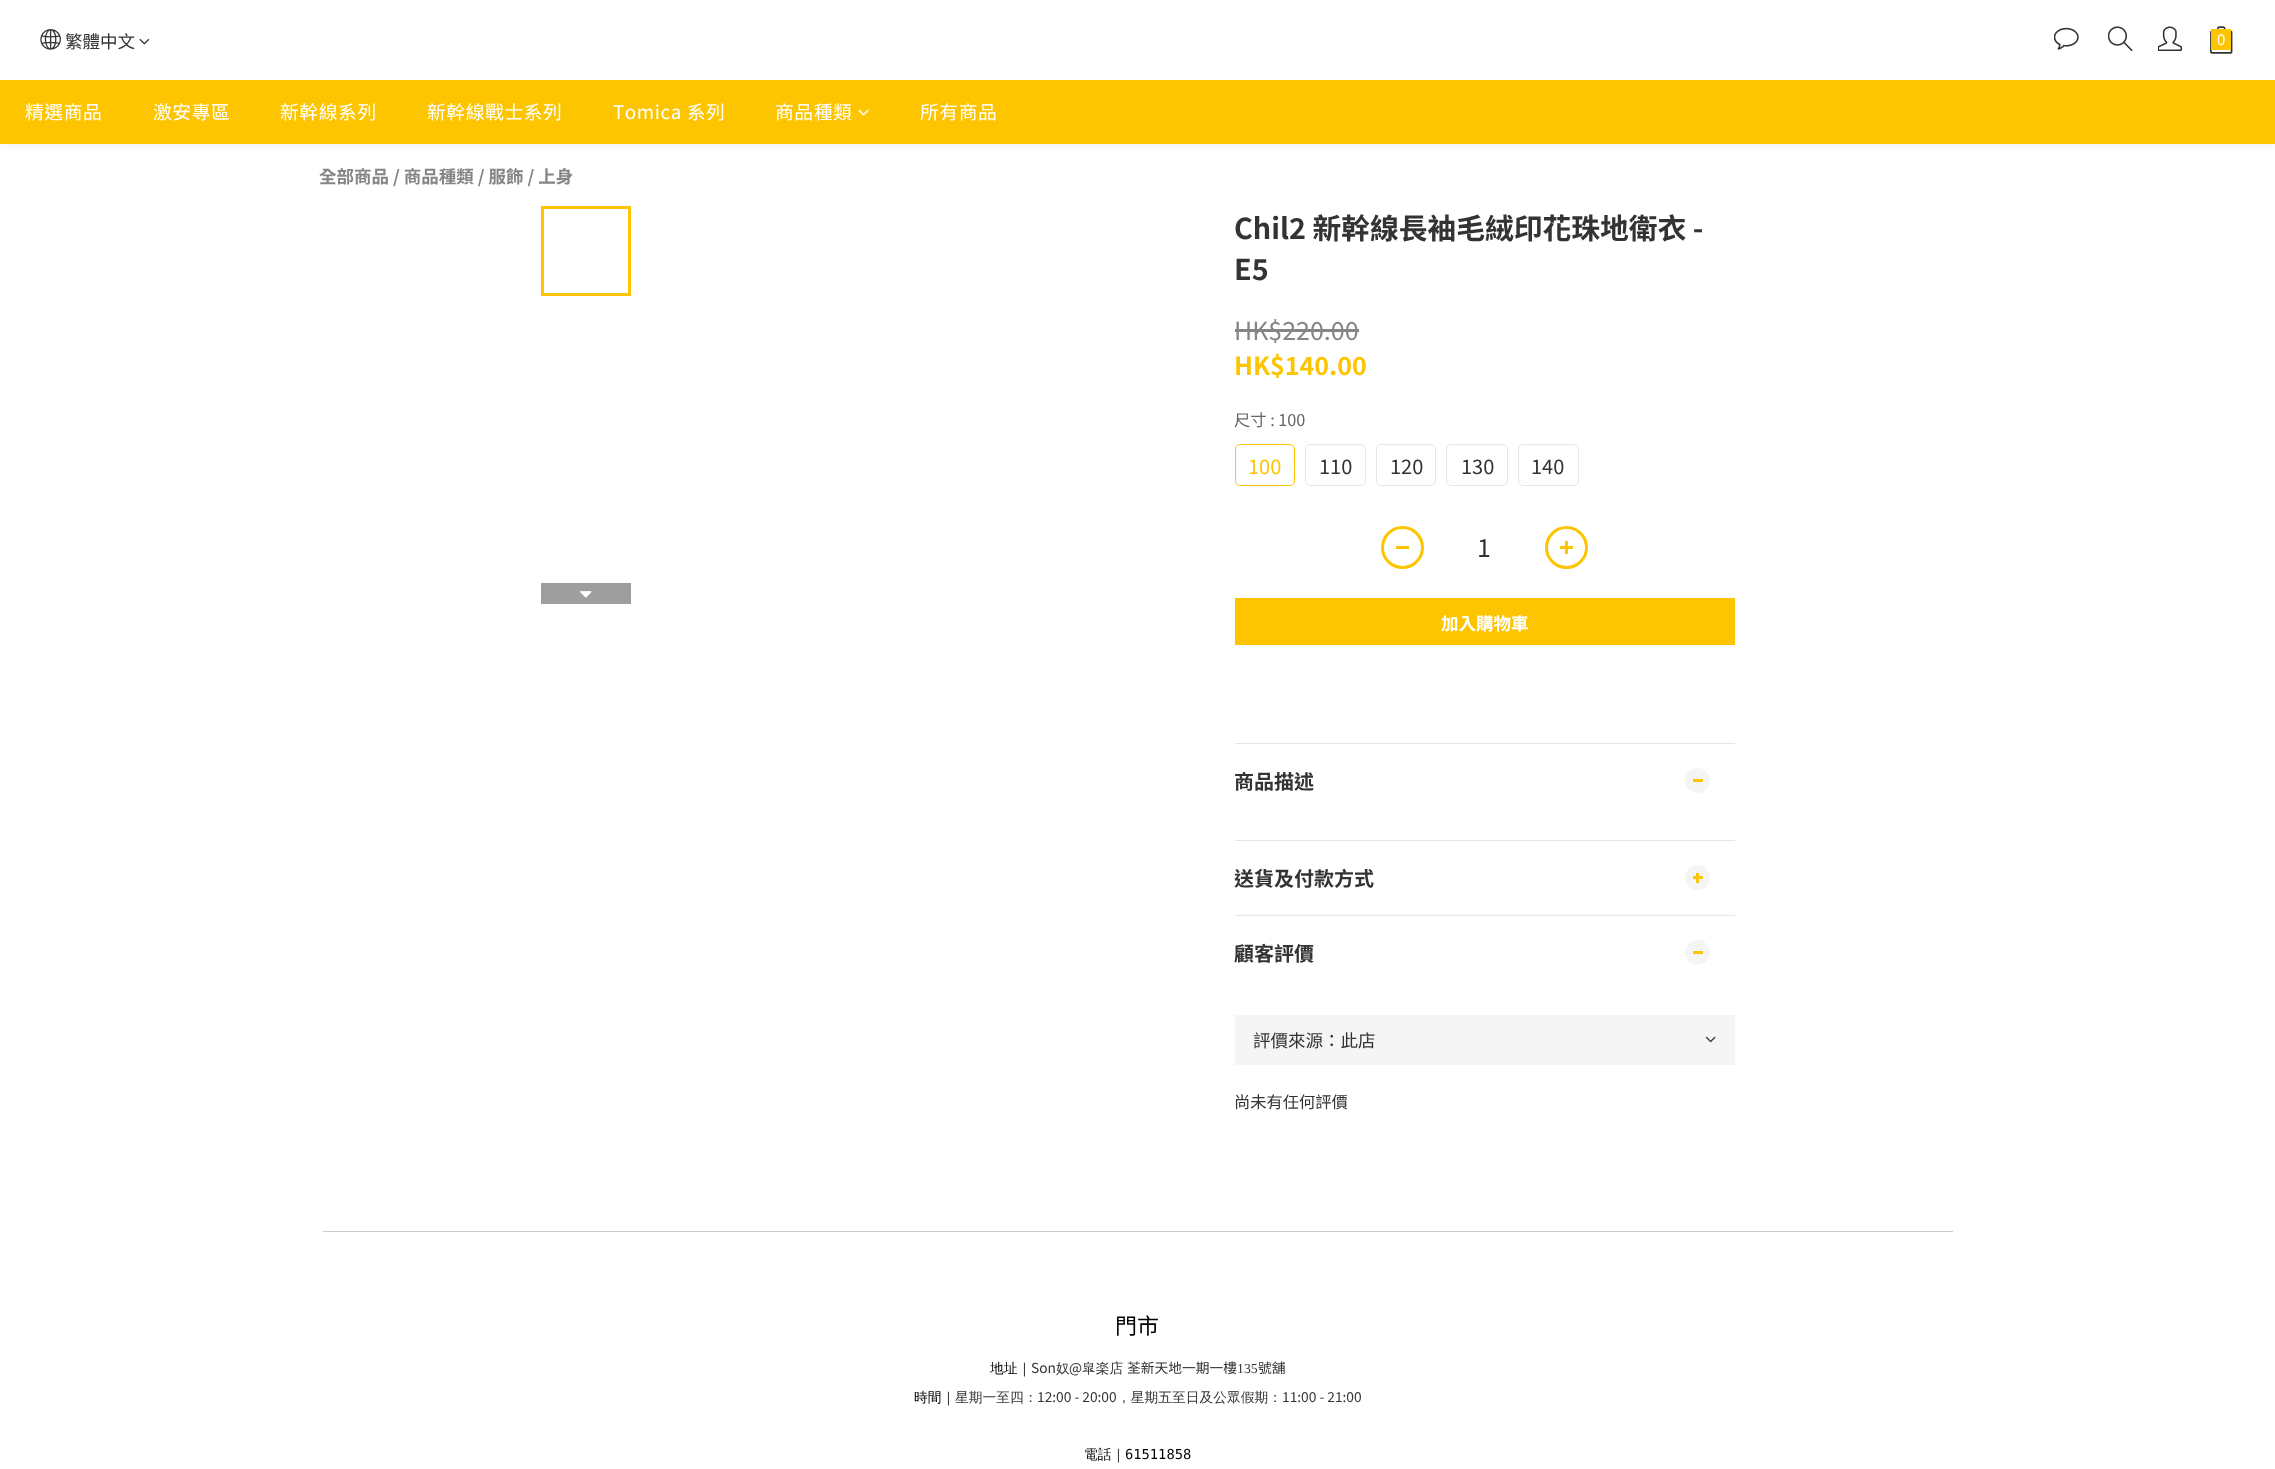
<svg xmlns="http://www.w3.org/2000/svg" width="2275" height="1469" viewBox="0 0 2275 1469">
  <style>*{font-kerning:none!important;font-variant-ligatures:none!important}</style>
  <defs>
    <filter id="blur1" x="-50%" y="-200%" width="200%" height="500%"><feGaussianBlur stdDeviation="4"/></filter>
  </defs>
  <rect width="100%" height="100%" fill="#ffffff"/>
  <rect x="0" y="3" width="2275" height="143" fill="#000000" fill-opacity="0.06" filter="url(#blur1)"/>
  <rect x="0" y="0" width="2275" height="80" fill="#ffffff"/>
  <image x="40" y="29" width="21" height="21" href="img1.png"/>
  <text x="65" y="48" font-family="Noto Sans TC" font-size="17.5" fill="#333333">繁體中文</text>
  <image x="139" y="38" width="11" height="7" href="img2.png"/>
  <image x="2054" y="27" width="25" height="23" href="img3.png"/>
  <image x="2108" y="26" width="25" height="25" href="img4.png"/>
  <image x="2158" y="26" width="25" height="25" href="img5.png"/>
  <image x="2210" y="26" width="23" height="28" href="img6.png"/>
  <rect x="2211" y="29" width="20" height="21" fill="#fdc500"/>
  <text x="2217" y="45" font-family="Noto Sans TC" font-size="15" fill="#ffffff">0</text>
  <rect x="0" y="80" width="2275" height="64" fill="#fdc500"/>
  <text x="25" y="119" font-family="Noto Sans TC" font-size="18.75" letter-spacing="0.6" fill="#ffffff">精選商品</text>
  <text x="153" y="119" font-family="Noto Sans TC" font-size="18.75" letter-spacing="0.6" fill="#ffffff">激安專區</text>
  <text x="280" y="119" font-family="Noto Sans TC" font-size="18.75" letter-spacing="0.6" fill="#ffffff">新幹線系列</text>
  <text x="427" y="119" font-family="Noto Sans TC" font-size="18.75" letter-spacing="0.6" fill="#ffffff">新幹線戰士系列</text>
  <text x="613" y="119" font-family="Noto Sans TC" font-size="18.75" letter-spacing="0.6" fill="#ffffff">Tomica 系列</text>
  <text x="775" y="119" font-family="Noto Sans TC" font-size="18.75" letter-spacing="0.6" fill="#ffffff">商品種類</text>
  <image x="858" y="109" width="11" height="7" href="img7.png"/>
  <text x="920" y="119" font-family="Noto Sans TC" font-size="18.75" letter-spacing="0.6" fill="#ffffff">所有商品</text>
  <text x="319" y="183" font-family="Noto Sans TC" font-size="17.5" font-weight="bold" fill="#858585">全部商品 / 商品種類 / 服飾 / 上身</text>
  <rect x="542.5" y="207.5" width="87" height="87" fill="none" stroke="#fdc500" stroke-width="3"/>
  <rect x="541" y="583" width="90" height="21" fill="#9e9e9e"/>
  <image x="580" y="591" width="12" height="7" href="img8.png"/>
  <text x="1234" y="239" font-family="Noto Sans TC" font-size="28.75" font-weight="bold" fill="#333333">Chil2 新幹線長袖毛絨印花珠地衛衣 -</text>
  <text x="1234" y="280" font-family="Noto Sans TC" font-size="28.75" font-weight="bold" fill="#333333">E5</text>
  <text x="1234" y="340" font-family="Noto Sans TC" font-size="25" fill="#858585">HK$220.00</text>
  <rect x="1235" y="329" width="124" height="3" fill="#858585"/>
  <text x="1234" y="375" font-family="Noto Sans TC" font-size="25" font-weight="bold" fill="#fdc500">HK$140.00</text>
  <text x="1234" y="426" font-family="Noto Sans TC" font-size="16.25" fill="#666666">尺寸 : 100</text>
  <rect x="1235.5" y="444.5" width="59" height="41" rx="4.5" fill="none" stroke="#fdc500"/>
  <text x="1248" y="474" font-family="Noto Sans TC" font-size="20" fill="#fdc500">100</text>
  <rect x="1305.5" y="444.5" width="60" height="41" rx="4.5" fill="none" stroke="#e6e6e6"/>
  <text x="1319" y="474" font-family="Noto Sans TC" font-size="20" fill="#333333">110</text>
  <rect x="1376.5" y="444.5" width="59" height="41" rx="4.5" fill="none" stroke="#e6e6e6"/>
  <text x="1390" y="474" font-family="Noto Sans TC" font-size="20" fill="#333333">120</text>
  <rect x="1446.5" y="444.5" width="61" height="41" rx="4.5" fill="none" stroke="#e6e6e6"/>
  <text x="1461" y="474" font-family="Noto Sans TC" font-size="20" fill="#333333">130</text>
  <rect x="1518.5" y="444.5" width="60" height="41" rx="4.5" fill="none" stroke="#e6e6e6"/>
  <text x="1531" y="474" font-family="Noto Sans TC" font-size="20" fill="#333333">140</text>
  <circle cx="1402.5" cy="547.5" r="20" fill="none" stroke="#fdc500" stroke-width="3"/>
  <rect x="1396" y="546" width="13" height="3" fill="#fdc500"/>
  <text x="1477" y="557" font-family="Noto Sans TC" font-size="25" fill="#333333">1</text>
  <circle cx="1566.5" cy="547.5" r="20" fill="none" stroke="#fdc500" stroke-width="3"/>
  <rect x="1560" y="546" width="13" height="3" fill="#fdc500"/>
  <rect x="1565" y="541" width="3" height="13" fill="#fdc500"/>
  <rect x="1235" y="598" width="500" height="47" fill="#fdc500"/>
  <text x="1441" y="630" font-family="Noto Sans TC" font-size="17.5" font-weight="bold" fill="#ffffff">加入購物車</text>
  <rect x="1235" y="743" width="500" height="1" fill="#e6e6e6"/>
  <text x="1234" y="789" font-family="Noto Sans TC" font-size="20" font-weight="bold" fill="#333333">商品描述</text>
  <circle cx="1697.5" cy="780.5" r="12.5" fill="#f5f5f5"/>
  <rect x="1693" y="779" width="10" height="3" fill="#fdc500"/>
  <rect x="1235" y="840" width="500" height="1" fill="#e6e6e6"/>
  <text x="1234" y="886" font-family="Noto Sans TC" font-size="20" font-weight="bold" fill="#333333">送貨及付款方式</text>
  <circle cx="1697.5" cy="877.5" r="12.5" fill="#f5f5f5"/>
  <rect x="1693" y="876" width="10" height="3" fill="#fdc500"/>
  <rect x="1696" y="873" width="3" height="10" fill="#fdc500"/>
  <rect x="1235" y="915" width="500" height="1" fill="#e6e6e6"/>
  <text x="1234" y="961" font-family="Noto Sans TC" font-size="20" font-weight="bold" fill="#333333">顧客評價</text>
  <circle cx="1697.5" cy="952.5" r="12.5" fill="#f5f5f5"/>
  <rect x="1693" y="951" width="10" height="3" fill="#fdc500"/>
  <rect x="1235" y="1015" width="500" height="50" fill="#f5f5f5"/>
  <text x="1253" y="1047" font-family="Noto Sans TC" font-size="17.5" fill="#333333">評價來源：此店</text>
  <image x="1705" y="1036" width="11" height="7" href="img9.png"/>
  <text x="1234" y="1108" font-family="Noto Sans TC" font-size="16.25" fill="#333333">尚未有任何評價</text>
  <rect x="323" y="1231" width="1630" height="1" fill="#cccccc"/>
  <text x="1115" y="1334" font-family="Noto Sans TC" font-size="22" fill="#000000">門市</text>
  <text x="990" y="1373" font-family="WenQuanYi Zen Hei" font-size="13.75" font-weight="500" fill="#000000">地址｜</text>
  <text x="1031" y="1373" font-family="Noto Sans TC" font-size="13.75" fill="#333333">Son</text>
  <text x="1056" y="1373" font-family="WenQuanYi Zen Hei" font-size="13.75" font-weight="500" fill="#333333">奴</text>
  <text x="1069" y="1373" font-family="Noto Sans TC" font-size="13.75" fill="#333333">@</text>
  <text x="1082" y="1373" font-family="WenQuanYi Zen Hei" font-size="13.75" font-weight="500" fill="#333333">皐楽店</text>
  <text x="1127" y="1373" font-family="Noto Sans TC" font-size="13.75" fill="#333333">荃新天地一期一樓</text>
  <text x="1237" y="1373" font-family="Liberation Serif" font-size="13.75" fill="#333333">135</text>
  <text x="1258" y="1373" font-family="Noto Sans TC" font-size="13.75" fill="#333333">號舖</text>
  <text x="914" y="1402" font-family="WenQuanYi Zen Hei" font-size="13.75" font-weight="500" fill="#000000">時間｜</text>
  <text x="955" y="1402" font-family="WenQuanYi Zen Hei" font-size="13.75" font-weight="500" fill="#333333">星期一至四：</text>
  <text x="1037" y="1402" font-family="Noto Sans TC" font-size="13.75" fill="#333333">12:00 - 20:00</text>
  <text x="1117" y="1402" font-family="WenQuanYi Zen Hei" font-size="13.75" font-weight="500" fill="#333333">，星期五至日及公眾假期：</text>
  <text x="1282" y="1402" font-family="Noto Sans TC" font-size="13.75" fill="#333333">11:00 - 21:00</text>
  <text x="1084" y="1459" font-family="WenQuanYi Zen Hei" font-size="13.75" font-weight="500" fill="#000000">電話｜</text>
  <text x="1125" y="1459" font-family="DejaVu Sans Mono" font-size="13.75" fill="#000000">61511858</text>
</svg>
